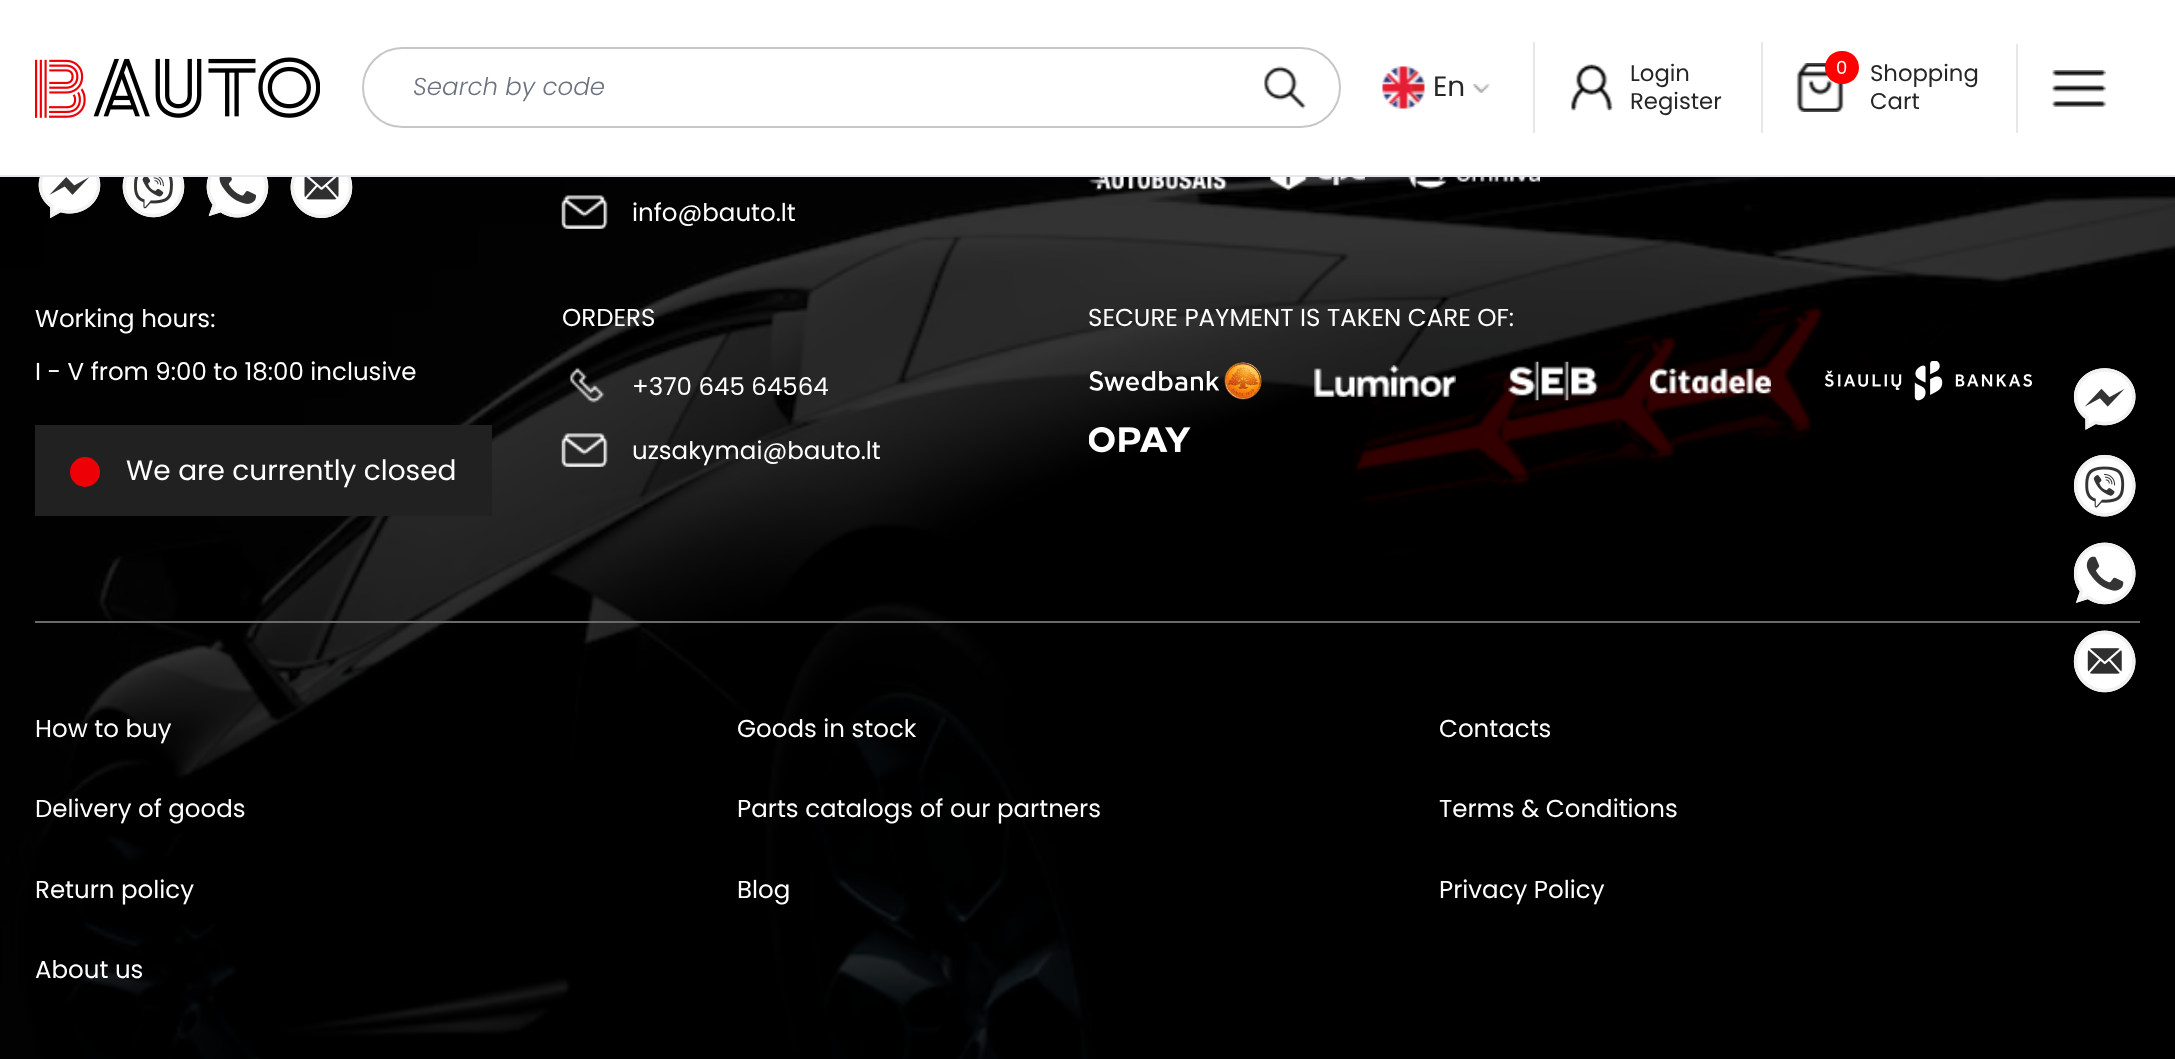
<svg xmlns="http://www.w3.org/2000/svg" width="2175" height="1059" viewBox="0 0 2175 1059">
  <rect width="100%" height="100%" fill="#ffffff"/>
  <rect x="0" y="175" width="2175" height="2" fill="#e5e7eb"/>
  <image x="35" y="57" width="285" height="61" href="img1.png"/>
  <rect x="363" y="48" width="977" height="79" rx="39.5" fill="none" stroke="#c7c7c7" stroke-width="2"/>
  <text x="413" y="95" font-family="Poppins" font-size="24.5" font-weight="300" font-style="italic" fill="#6b7280">Search by code</text>
  <image x="1264" y="66" width="42" height="43" href="img2.png"/>
  <rect x="1533" y="42" width="2" height="91" fill="#e5e7eb"/>
  <image x="1382" y="66" width="43" height="43" href="img3.png"/>
  <text x="1433" y="96" font-family="Poppins" font-size="28" fill="#262626">En</text>
  <image x="1473" y="84" width="17" height="9" href="img4.png"/>
  <rect x="1761" y="42" width="2" height="91" fill="#e5e7eb"/>
  <image x="1571" y="64" width="42" height="47" href="img5.png"/>
  <text x="1630" y="81" font-family="Poppins" font-size="22.75" fill="#262626">Login</text>
  <text x="1630" y="109" font-family="Poppins" font-size="22.75" fill="#262626">Register</text>
  <image x="1796" y="63" width="48" height="49" href="img6.png"/>
  <rect x="1825" y="51" width="34" height="33" rx="16.5" fill="#ff0000"/>
  <text x="1836" y="74" font-family="Poppins" font-size="18" fill="#ffffff">0</text>
  <text x="1870" y="81" font-family="Poppins" font-size="22.75" fill="#262626">Shopping</text>
  <text x="1870" y="109" font-family="Poppins" font-size="22.75" fill="#262626">Cart</text>
  <rect x="2016" y="44" width="2" height="89" fill="#e5e7eb"/>
  <image x="2052" y="70" width="54" height="37" href="img7.png"/>
  <image x="0" y="177" width="2175" height="882" href="img12.png"/>
  <image x="2073" y="368" width="63" height="62" href="img8.png"/>
  <image x="2073" y="454" width="63" height="63" href="img9.png"/>
  <image x="2073" y="542" width="63" height="63" href="img10.png"/>
  <image x="2073" y="630" width="63" height="63" href="img11.png"/>
  <image x="38" y="177" width="63" height="41" href="img13.png"/>
  <image x="122" y="177" width="63" height="41" href="img14.png"/>
  <image x="206" y="177" width="63" height="41" href="img15.png"/>
  <image x="290" y="177" width="63" height="41" href="img16.png"/>
  <text x="35" y="327" font-family="Poppins" font-size="24.5" fill="#ffffff">Working hours:</text>
  <text x="35" y="380" font-family="Poppins" font-size="24.5" fill="#ffffff">I - V from 9:00 to 18:00 inclusive</text>
  <rect x="35" y="425" width="457" height="91" fill="#212121"/>
  <circle cx="85" cy="472" r="15" fill="#ed0006"/>
  <text x="126" y="480" font-family="Poppins" font-size="28" fill="#ffffff">We are currently closed</text>
  <image x="561" y="195" width="47" height="34" href="img17.png"/>
  <text x="632" y="221" font-family="Poppins" font-size="24.5" fill="#ffffff">info@bauto.lt</text>
  <text x="562" y="326" font-family="Poppins" font-size="24.5" fill="#ffffff">ORDERS</text>
  <image x="569" y="367" width="36" height="36" href="img18.png"/>
  <text x="632" y="395" font-family="Poppins" font-size="24.5" fill="#ffffff">+370 645 64564</text>
  <image x="561" y="433" width="47" height="34" href="img19.png"/>
  <text x="632" y="459" font-family="Poppins" font-size="24.5" fill="#ffffff">uzsakymai@bauto.lt</text>
  <image x="1088" y="177" width="139" height="14" href="img20.png"/>
  <image x="1270" y="177" width="95" height="14" href="img21.png"/>
  <image x="1408" y="177" width="132" height="12" href="img22.png"/>
  <text x="1088" y="326" font-family="Poppins" font-size="24.5" fill="#ffffff">SECURE PAYMENT IS TAKEN CARE OF:</text>
  <image x="1089" y="362" width="173" height="38" href="img23.png"/>
  <image x="1314" y="365" width="142" height="32" href="img24.png"/>
  <image x="1508" y="361" width="90" height="40" href="img25.png"/>
  <image x="1650" y="368" width="121" height="26" href="img26.png"/>
  <image x="1824" y="361" width="208" height="40" href="img27.png"/>
  <image x="1089" y="427" width="102" height="26" href="img28.png"/>
  <rect x="35" y="621" width="2105" height="2" fill="#6a6a6a"/>
  <text x="35" y="737" font-family="Poppins" font-size="24.5" fill="#ffffff">How to buy</text>
  <text x="35" y="817" font-family="Poppins" font-size="24.5" fill="#ffffff">Delivery of goods</text>
  <text x="35" y="898" font-family="Poppins" font-size="24.5" fill="#ffffff">Return policy</text>
  <text x="35" y="978" font-family="Poppins" font-size="24.5" fill="#ffffff">About us</text>
  <text x="737" y="737" font-family="Poppins" font-size="24.5" fill="#ffffff">Goods in stock</text>
  <text x="737" y="817" font-family="Poppins" font-size="24.5" fill="#ffffff">Parts catalogs of our partners</text>
  <text x="737" y="898" font-family="Poppins" font-size="24.5" fill="#ffffff">Blog</text>
  <text x="1439" y="737" font-family="Poppins" font-size="24.5" fill="#ffffff">Contacts</text>
  <text x="1439" y="817" font-family="Poppins" font-size="24.5" fill="#ffffff">Terms &amp; Conditions</text>
  <text x="1439" y="898" font-family="Poppins" font-size="24.5" fill="#ffffff">Privacy Policy</text>
</svg>
